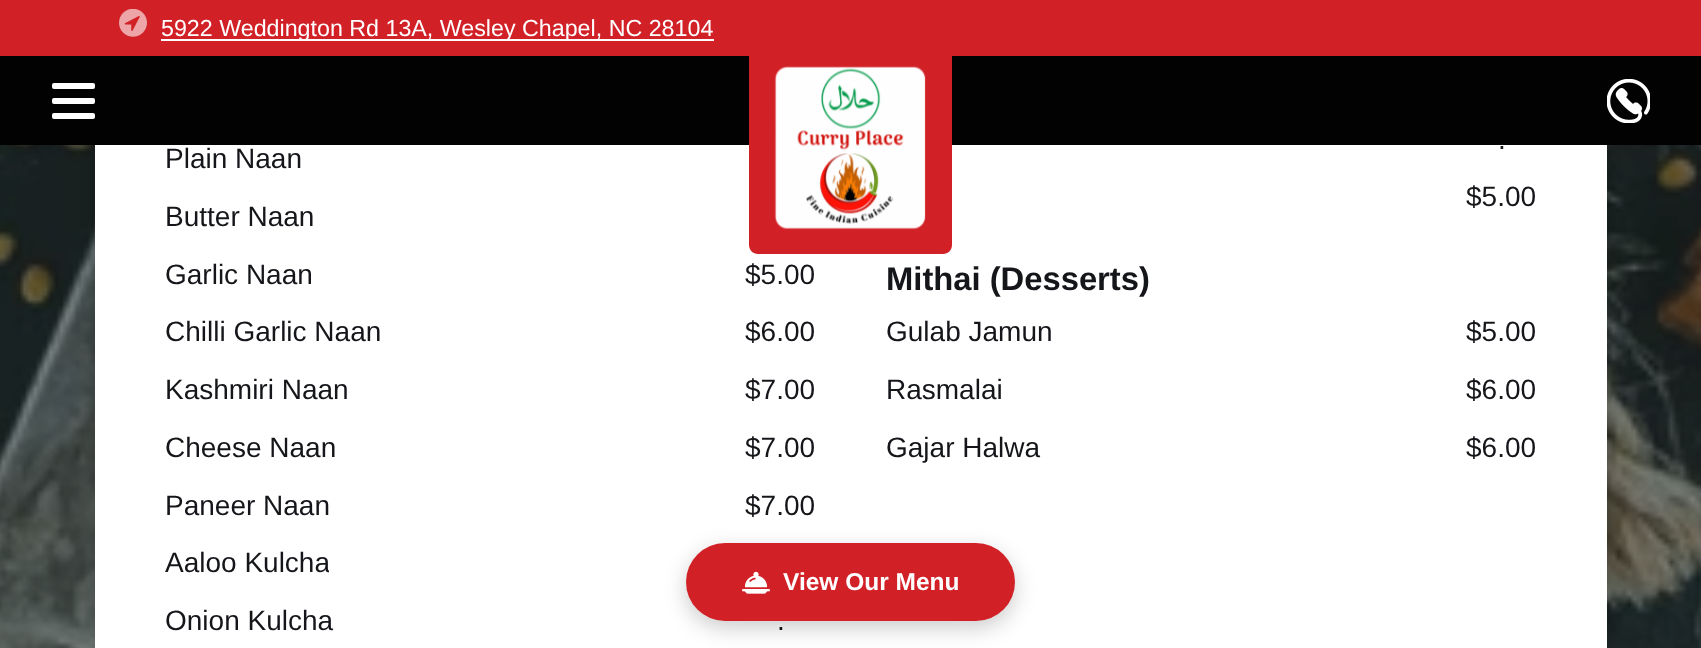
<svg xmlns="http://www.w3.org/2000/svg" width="1701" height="648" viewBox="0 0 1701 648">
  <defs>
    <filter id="blur1" x="-50%" y="-200%" width="200%" height="500%"><feGaussianBlur stdDeviation="10.5"/></filter>
    <clipPath id="clip1"><rect x="165" y="543" width="164" height="42"/></clipPath>
  </defs>
  <rect width="100%" height="100%" fill="#ffffff"/>
  <image x="0" y="145" width="1701" height="503" href="img4.png"/>
  <rect x="95" y="-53" width="1512" height="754" rx="21" fill="#000000" fill-opacity="0.2" filter="url(#blur1)"/>
  <rect x="0" y="0" width="1701" height="56" fill="#d22027"/>
  <image x="119" y="9" width="28" height="28" href="img1.png"/>
  <rect x="161" y="39" width="553" height="2" fill="#ffffff"/>
  <text x="161" y="36" font-family="Liberation Sans" font-size="23.25" fill="#ffffff">5922 Weddington Rd 13A, Wesley Chapel, NC 28104</text>
  <rect x="0" y="56" width="1701" height="89" fill="#020202"/>
  <rect x="95" y="145" width="1512" height="503" fill="#ffffff"/>
  <path d="M749 42H952V245C952 250 948 254 943 254H758C753 254 749 250 749 245Z" fill="#d22027"/>
  <image x="774" y="66" width="152" height="164" href="img2.png"/>
  <rect x="52" y="83" width="43" height="6" rx="2" fill="#ffffff"/>
  <rect x="52" y="98" width="43" height="6" rx="2" fill="#ffffff"/>
  <rect x="52" y="113" width="43" height="6" rx="2" fill="#ffffff"/>
  <image x="1607" y="79" width="43" height="44" href="img3.png"/>
  <text x="165" y="168" font-family="Liberation Sans" font-size="28" fill="#15161a">Plain Naan</text>
  <text x="165" y="226" font-family="Liberation Sans" font-size="28" fill="#15161a">Butter Naan</text>
  <text x="165" y="284" font-family="Liberation Sans" font-size="28" fill="#15161a">Garlic Naan</text>
  <text x="745" y="284" font-family="Liberation Sans" font-size="28" fill="#15161a">$5.00</text>
  <text x="165" y="341" font-family="Liberation Sans" font-size="28" fill="#15161a">Chilli Garlic Naan</text>
  <text x="745" y="341" font-family="Liberation Sans" font-size="28" fill="#15161a">$6.00</text>
  <text x="165" y="399" font-family="Liberation Sans" font-size="28" fill="#15161a">Kashmiri Naan</text>
  <text x="745" y="399" font-family="Liberation Sans" font-size="28" fill="#15161a">$7.00</text>
  <text x="165" y="457" font-family="Liberation Sans" font-size="28" fill="#15161a">Cheese Naan</text>
  <text x="745" y="457" font-family="Liberation Sans" font-size="28" fill="#15161a">$7.00</text>
  <text x="165" y="515" font-family="Liberation Sans" font-size="28" fill="#15161a">Paneer Naan</text>
  <text x="745" y="515" font-family="Liberation Sans" font-size="28" fill="#15161a">$7.00</text>
  <g clip-path="url(#clip1)">
    <text x="165" y="572" font-family="Liberation Sans" font-size="28" fill="#15161a">Aaloo Kulcha</text>
  </g>
  <text x="165" y="630" font-family="Liberation Sans" font-size="28" fill="#15161a">Onion Kulcha</text>
  <text x="777" y="630" font-family="Liberation Sans" font-size="28" fill="#15161a">.</text>
  <text x="1498" y="149" font-family="Liberation Sans" font-size="28" fill="#15161a">.</text>
  <text x="1466" y="206" font-family="Liberation Sans" font-size="28" fill="#15161a">$5.00</text>
  <text x="886" y="290" font-family="Liberation Sans" font-size="32.75" font-weight="bold" fill="#15161a">Mithai (Desserts)</text>
  <text x="886" y="341" font-family="Liberation Sans" font-size="28" fill="#15161a">Gulab Jamun</text>
  <text x="1466" y="341" font-family="Liberation Sans" font-size="28" fill="#15161a">$5.00</text>
  <text x="886" y="399" font-family="Liberation Sans" font-size="28" fill="#15161a">Rasmalai</text>
  <text x="1466" y="399" font-family="Liberation Sans" font-size="28" fill="#15161a">$6.00</text>
  <text x="886" y="457" font-family="Liberation Sans" font-size="28" fill="#15161a">Gajar Halwa</text>
  <text x="1466" y="457" font-family="Liberation Sans" font-size="28" fill="#15161a">$6.00</text>
  <rect x="686" y="550" width="329" height="78" rx="39" fill="#000000" fill-opacity="0.2" filter="url(#blur1)"/>
  <rect x="686" y="543" width="329" height="78" rx="39" fill="#d22027"/>
  <image x="742" y="571" width="28" height="23" href="img5.png"/>
  <text x="783" y="590" font-family="Liberation Sans" font-size="24.5" font-weight="bold" fill="#ffffff">View Our Menu</text>
</svg>
